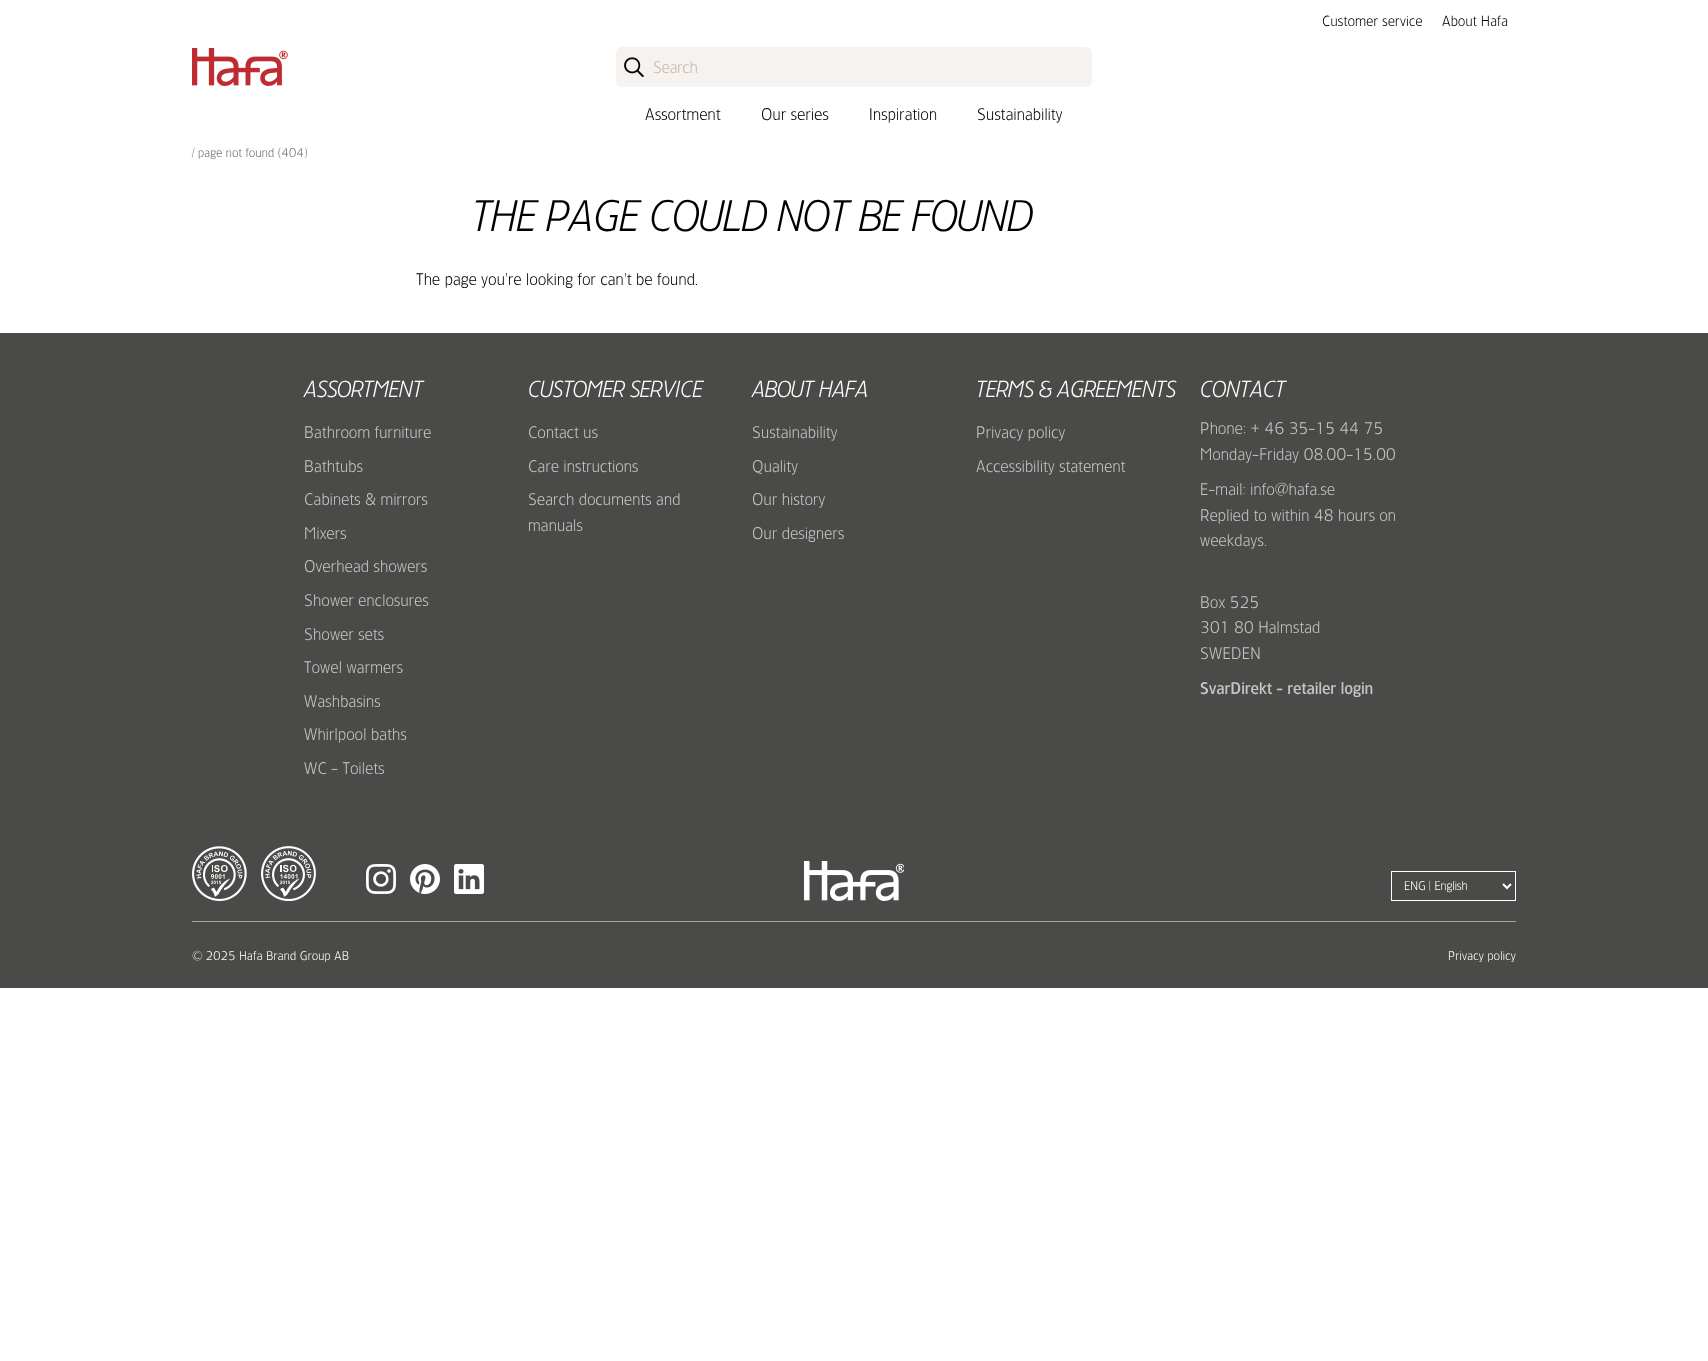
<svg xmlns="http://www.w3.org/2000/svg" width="1708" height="1361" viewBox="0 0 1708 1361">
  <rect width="100%" height="100%" fill="#ffffff"/>
  <text x="1322" y="26" font-family="'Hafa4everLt'" font-size="14" font-weight="500" letter-spacing="0.3" fill="#000000">Customer service</text>
  <text x="1442" y="26" font-family="'Hafa4everLt'" font-size="14" font-weight="500" letter-spacing="0.3" fill="#000000">About Hafa</text>
  <image x="192" y="48" width="96" height="38" href="img1.png"/>
  <rect x="616" y="47" width="476" height="40" rx="6" fill="#f5f2f0"/>
  <image x="624" y="57" width="20" height="20" href="img2.png"/>
  <text x="653" y="73" font-family="'Hafa4everLt'" font-size="16" font-weight="500" fill="#c7b8ad">Search</text>
  <text x="645" y="120" font-family="'Hafa4everLt'" font-size="16" font-weight="500" letter-spacing="0.3" fill="#000000">Assortment</text>
  <text x="761" y="120" font-family="'Hafa4everLt'" font-size="16" font-weight="500" letter-spacing="0.3" fill="#000000">Our series</text>
  <text x="869" y="120" font-family="'Hafa4everLt'" font-size="16" font-weight="500" letter-spacing="0.3" fill="#000000">Inspiration</text>
  <text x="977" y="120" font-family="'Hafa4everLt'" font-size="16" font-weight="500" letter-spacing="0.3" fill="#000000">Sustainability</text>
  <text x="192" y="157" font-family="'Hafa4everLt'" font-size="12" font-weight="500" fill="#6c6c6c">/</text>
  <text x="198" y="157" font-family="'Hafa4everLt'" font-size="12" font-weight="500" letter-spacing="0.3" fill="#6c6c6c">page not found (404)</text>
  <text x="472" y="231" font-family="'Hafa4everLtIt'" font-size="42" font-weight="500" fill="#000000">THE PAGE COULD NOT BE FOUND</text>
  <text x="416" y="285" font-family="'Hafa4everLt'" font-size="16" font-weight="500" letter-spacing="0.3" fill="#000000">The page you're looking for can't be found.</text>
  <rect x="0" y="333" width="1708" height="655" fill="#4a4a48"/>
  <text x="304" y="397" font-family="'Hafa4everLtIt'" font-size="22" font-weight="500" fill="#fefefe">ASSORTMENT</text>
  <text x="304" y="438" font-family="'Hafa4everLt'" font-size="16" font-weight="500" letter-spacing="0.3" fill="#c5c5c5">Bathroom furniture</text>
  <text x="304" y="472" font-family="'Hafa4everLt'" font-size="16" font-weight="500" letter-spacing="0.3" fill="#c5c5c5">Bathtubs</text>
  <text x="304" y="505" font-family="'Hafa4everLt'" font-size="16" font-weight="500" letter-spacing="0.3" fill="#c5c5c5">Cabinets &amp; mirrors</text>
  <text x="304" y="539" font-family="'Hafa4everLt'" font-size="16" font-weight="500" letter-spacing="0.3" fill="#c5c5c5">Mixers</text>
  <text x="304" y="572" font-family="'Hafa4everLt'" font-size="16" font-weight="500" letter-spacing="0.3" fill="#c5c5c5">Overhead showers</text>
  <text x="304" y="606" font-family="'Hafa4everLt'" font-size="16" font-weight="500" letter-spacing="0.3" fill="#c5c5c5">Shower enclosures</text>
  <text x="304" y="640" font-family="'Hafa4everLt'" font-size="16" font-weight="500" letter-spacing="0.3" fill="#c5c5c5">Shower sets</text>
  <text x="304" y="673" font-family="'Hafa4everLt'" font-size="16" font-weight="500" letter-spacing="0.3" fill="#c5c5c5">Towel warmers</text>
  <text x="304" y="707" font-family="'Hafa4everLt'" font-size="16" font-weight="500" letter-spacing="0.3" fill="#c5c5c5">Washbasins</text>
  <text x="304" y="740" font-family="'Hafa4everLt'" font-size="16" font-weight="500" letter-spacing="0.3" fill="#c5c5c5">Whirlpool baths</text>
  <text x="304" y="774" font-family="'Hafa4everLt'" font-size="16" font-weight="500" letter-spacing="0.3" fill="#c5c5c5">WC - Toilets</text>
  <text x="528" y="397" font-family="'Hafa4everLtIt'" font-size="22" font-weight="500" fill="#fefefe">CUSTOMER SERVICE</text>
  <text x="528" y="438" font-family="'Hafa4everLt'" font-size="16" font-weight="500" letter-spacing="0.3" fill="#c5c5c5">Contact us</text>
  <text x="528" y="472" font-family="'Hafa4everLt'" font-size="16" font-weight="500" letter-spacing="0.3" fill="#c5c5c5">Care instructions</text>
  <text x="528" y="505" font-family="'Hafa4everLt'" font-size="16" font-weight="500" letter-spacing="0.3" fill="#c5c5c5">Search documents and</text>
  <text x="528" y="531" font-family="'Hafa4everLt'" font-size="16" font-weight="500" letter-spacing="0.3" fill="#c5c5c5">manuals</text>
  <text x="752" y="397" font-family="'Hafa4everLtIt'" font-size="22" font-weight="500" fill="#fefefe">ABOUT HAFA</text>
  <text x="752" y="438" font-family="'Hafa4everLt'" font-size="16" font-weight="500" letter-spacing="0.3" fill="#c5c5c5">Sustainability</text>
  <text x="752" y="472" font-family="'Hafa4everLt'" font-size="16" font-weight="500" letter-spacing="0.3" fill="#c5c5c5">Quality</text>
  <text x="752" y="505" font-family="'Hafa4everLt'" font-size="16" font-weight="500" letter-spacing="0.3" fill="#c5c5c5">Our history</text>
  <text x="752" y="539" font-family="'Hafa4everLt'" font-size="16" font-weight="500" letter-spacing="0.3" fill="#c5c5c5">Our designers</text>
  <text x="976" y="397" font-family="'Hafa4everLtIt'" font-size="22" font-weight="500" fill="#fefefe">TERMS &amp; AGREEMENTS</text>
  <text x="976" y="438" font-family="'Hafa4everLt'" font-size="16" font-weight="500" letter-spacing="0.3" fill="#c5c5c5">Privacy policy</text>
  <text x="976" y="472" font-family="'Hafa4everLt'" font-size="16" font-weight="500" letter-spacing="0.3" fill="#c5c5c5">Accessibility statement</text>
  <text x="1200" y="397" font-family="'Hafa4everLtIt'" font-size="22" font-weight="500" fill="#fefefe">CONTACT</text>
  <text x="1200" y="434" font-family="'Hafa4everLt'" font-size="16" font-weight="500" letter-spacing="0.3" fill="#c5c5c5">Phone: + 46 35-15 44 75</text>
  <text x="1200" y="460" font-family="'Hafa4everLt'" font-size="16" font-weight="500" letter-spacing="0.3" fill="#c5c5c5">Monday-Friday 08.00-15.00</text>
  <text x="1200" y="495" font-family="'Hafa4everLt'" font-size="16" font-weight="500" letter-spacing="0.3" fill="#c5c5c5">E-mail: info@hafa.se</text>
  <text x="1200" y="521" font-family="'Hafa4everLt'" font-size="16" font-weight="500" letter-spacing="0.3" fill="#c5c5c5">Replied to within 48 hours on</text>
  <text x="1200" y="546" font-family="'Hafa4everLt'" font-size="16" font-weight="500" letter-spacing="0.3" fill="#c5c5c5">weekdays.</text>
  <text x="1200" y="608" font-family="'Hafa4everLt'" font-size="16" font-weight="500" letter-spacing="0.3" fill="#c5c5c5">Box 525</text>
  <text x="1200" y="633" font-family="'Hafa4everLt'" font-size="16" font-weight="500" letter-spacing="0.3" fill="#c5c5c5">301 80 Halmstad</text>
  <text x="1200" y="659" font-family="'Hafa4everLt'" font-size="16" font-weight="500" letter-spacing="0.3" fill="#c5c5c5">SWEDEN</text>
  <text x="1200" y="694" font-family="'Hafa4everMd'" font-size="16" font-weight="500" letter-spacing="0.3" fill="#c5c5c5">SvarDirekt - retailer login</text>
  <image x="804" y="861" width="100" height="40" href="img3.png"/>
  <rect x="192" y="921" width="1324" height="1" fill="#a6a492"/>
  <image x="192" y="846" width="55" height="55" href="img4.png"/>
  <image x="261" y="846" width="55" height="55" href="img5.png"/>
  <image x="366" y="864" width="30" height="30" href="img6.png"/>
  <image x="410" y="864" width="30" height="30" href="img7.png"/>
  <image x="454" y="864" width="30" height="30" href="img8.png"/>
  <rect x="1391.5" y="871.5" width="124" height="29" fill="none" stroke="#fefefe"/>
  <path d="M1503 884L1507 888L1511 884" fill="none" stroke="#fefefe" stroke-width="2"/>
  <text x="1404" y="890" font-family="'Hafa4everLt'" font-size="12" font-weight="500" fill="#fefefe">ENG | English</text>
  <text x="192" y="960" font-family="'Hafa4everLt'" font-size="12" font-weight="500" letter-spacing="0.3" fill="#fefefe">© 2025 Hafa Brand Group AB</text>
  <text x="1448" y="960" font-family="'Hafa4everLt'" font-size="12" font-weight="500" letter-spacing="0.3" fill="#fefefe">Privacy policy</text>
</svg>
